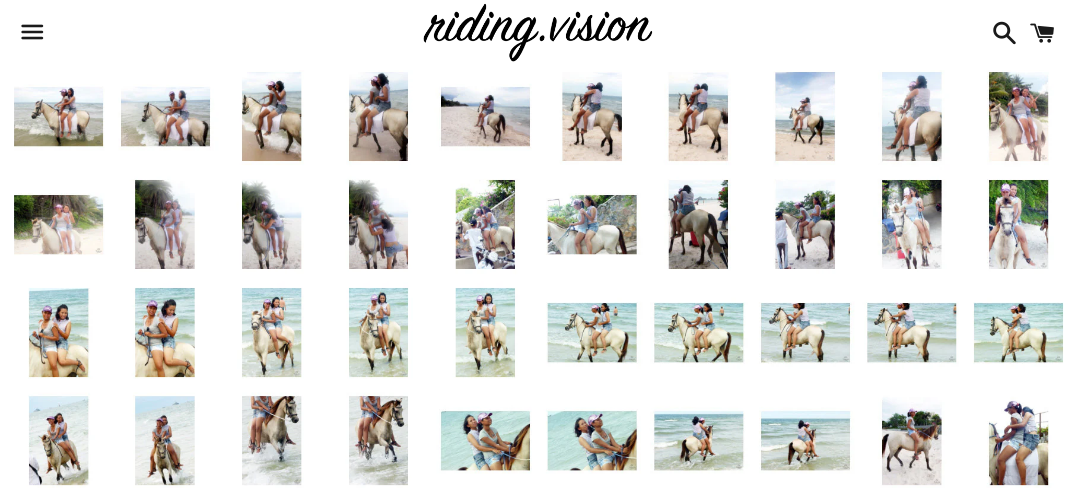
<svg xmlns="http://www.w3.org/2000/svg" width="1075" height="493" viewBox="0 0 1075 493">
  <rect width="100%" height="100%" fill="#ffffff"/>
  <image x="21" y="24" width="23" height="16" href="img1.png"/>
  <image x="423" y="3" width="230" height="59" href="img2.png"/>
  <image x="993" y="21" width="23" height="24" href="img3.png"/>
  <image x="1030" y="23" width="24" height="20" href="img4.png"/>
  <image x="14" y="70" width="1050" height="418" href="img5.png"/>
</svg>
